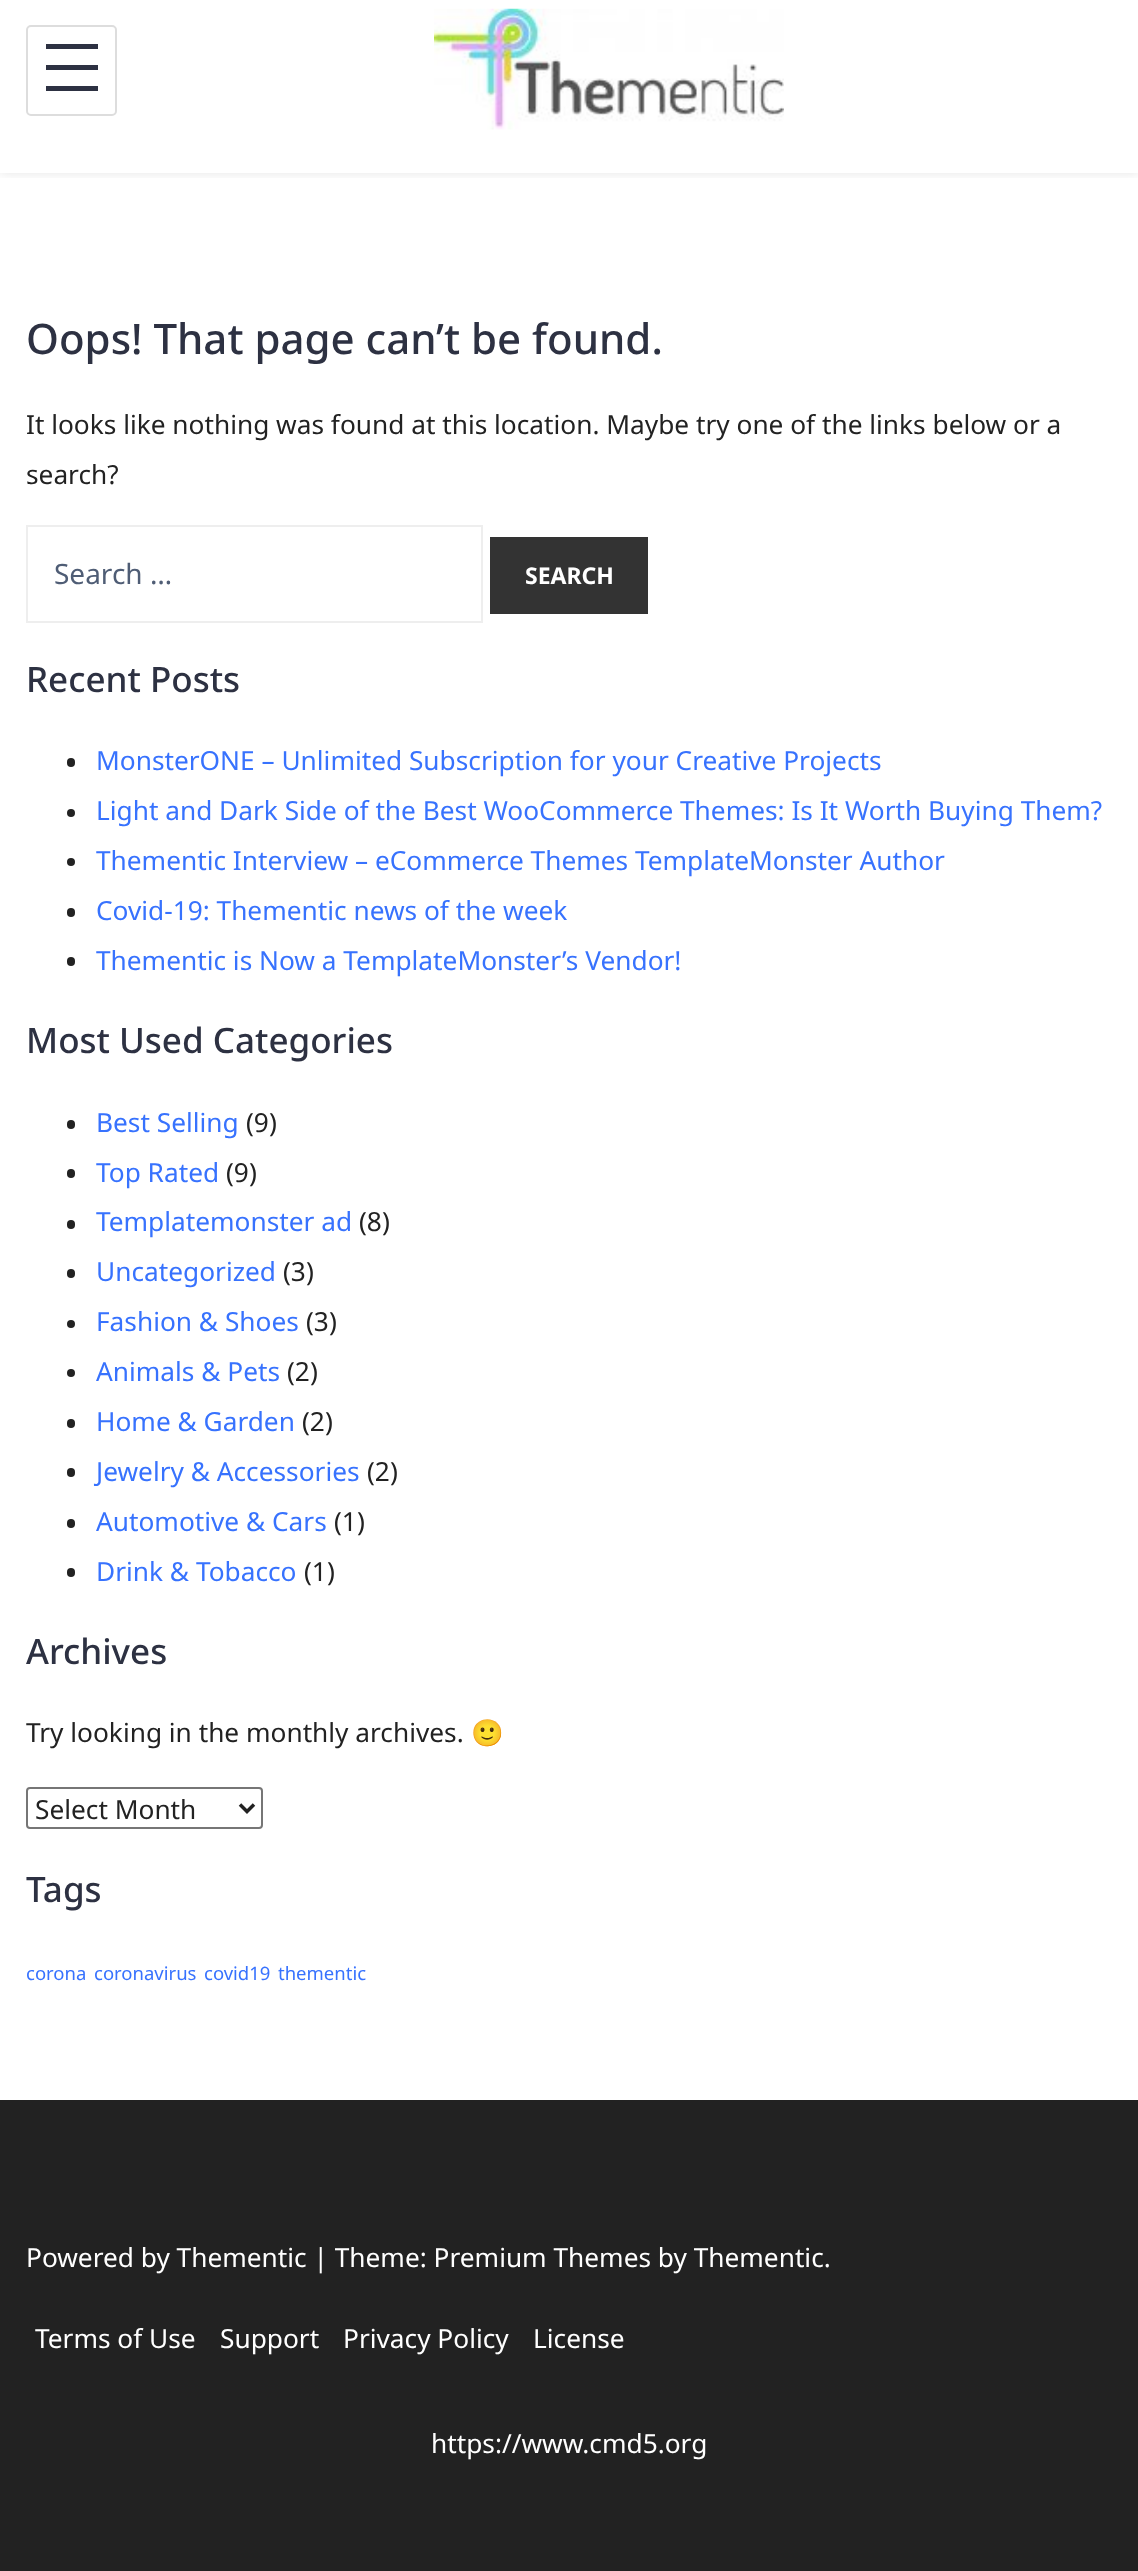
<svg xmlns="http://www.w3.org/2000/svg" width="1138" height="2571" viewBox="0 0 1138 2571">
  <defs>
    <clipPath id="clip1"><rect x="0" y="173" width="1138" height="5"/></clipPath>
    <filter id="blur1" x="-50%" y="-200%" width="200%" height="500%"><feGaussianBlur stdDeviation="6"/></filter>
  </defs>
  <rect width="100%" height="100%" fill="#ffffff"/>
  <g clip-path="url(#clip1)">
    <rect x="0" y="-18" width="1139" height="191" fill="#000000" fill-opacity="0.1" filter="url(#blur1)"/>
  </g>
  <rect x="27" y="26" width="89" height="89" rx="4" fill="none" stroke="#dddddd" stroke-width="2"/>
  <rect x="46" y="44" width="52" height="5" fill="#2d3142"/>
  <rect x="46" y="65" width="52" height="5" fill="#2d3142"/>
  <rect x="46" y="86" width="52" height="5" fill="#2d3142"/>
  <image x="434" y="8" width="350" height="122" href="img1.png"/>
  <text x="26" y="354" font-family="Noto Sans" font-size="42" font-weight="500" fill="#2d3142">Oops! That page can’t be found.</text>
  <text x="26" y="434" font-family="Noto Sans" font-size="26.25" fill="#222222">It looks like nothing was found at this location. Maybe try one of the links below or a</text>
  <text x="26" y="484" font-family="Noto Sans" font-size="26.25" fill="#222222">search?</text>
  <rect x="27" y="526" width="455" height="96" fill="none" stroke="#eeeeee" stroke-width="2"/>
  <text x="54" y="584" font-family="Noto Sans" font-size="28" fill="#4f5d75">Search …</text>
  <rect x="490" y="537" width="158" height="77" fill="#333333"/>
  <text x="525" y="584" font-family="Noto Sans" font-size="23" font-weight="bold" fill="#ffffff">SEARCH</text>
  <text x="26" y="692" font-family="Noto Sans" font-size="35" font-weight="500" fill="#2d3142">Recent Posts</text>
  <rect x="67" y="758" width="8" height="9" rx="4" fill="#222222"/>
  <text x="96" y="770" font-family="Noto Sans" font-size="26.25" fill="#3772fe">MonsterONE – Unlimited Subscription for your Creative Projects</text>
  <circle cx="71" cy="813" r="4" fill="#222222"/>
  <text x="96" y="820" font-family="Noto Sans" font-size="26.25" fill="#3772fe">Light and Dark Side of the Best WooCommerce Themes: Is It Worth Buying Them?</text>
  <circle cx="71" cy="862" r="4" fill="#222222"/>
  <text x="96" y="870" font-family="Noto Sans" font-size="26.25" fill="#3772fe">Thementic Interview – eCommerce Themes TemplateMonster Author</text>
  <rect x="67" y="908" width="8" height="9" rx="4" fill="#222222"/>
  <text x="96" y="920" font-family="Noto Sans" font-size="26.25" fill="#3772fe">Covid-19: Thementic news of the week</text>
  <rect x="67" y="957" width="8" height="9" rx="4" fill="#222222"/>
  <text x="96" y="970" font-family="Noto Sans" font-size="26.25" fill="#3772fe">Thementic is Now a TemplateMonster’s Vendor!</text>
  <text x="26" y="1053" font-family="Noto Sans" font-size="35" font-weight="500" fill="#2d3142">Most Used Categories</text>
  <rect x="67" y="1120" width="8" height="9" rx="4" fill="#222222"/>
  <text x="96" y="1132" font-family="Noto Sans" font-size="26.25" fill="#3772fe">Best Selling</text>
  <text x="246" y="1132" font-family="Noto Sans" font-size="26.25" fill="#222222">(9)</text>
  <rect x="67" y="1169" width="8" height="9" rx="4" fill="#222222"/>
  <text x="96" y="1182" font-family="Noto Sans" font-size="26.25" fill="#3772fe">Top Rated</text>
  <text x="226" y="1182" font-family="Noto Sans" font-size="26.25" fill="#222222">(9)</text>
  <rect x="67" y="1220" width="8" height="9" rx="4" fill="#222222"/>
  <text x="96" y="1231" font-family="Noto Sans" font-size="26.25" fill="#3772fe">Templatemonster ad</text>
  <text x="359" y="1231" font-family="Noto Sans" font-size="26.25" fill="#222222">(8)</text>
  <rect x="67" y="1269" width="8" height="9" rx="4" fill="#222222"/>
  <text x="96" y="1281" font-family="Noto Sans" font-size="26.25" fill="#3772fe">Uncategorized</text>
  <text x="283" y="1281" font-family="Noto Sans" font-size="26.25" fill="#222222">(3)</text>
  <circle cx="71" cy="1324" r="4" fill="#222222"/>
  <text x="96" y="1331" font-family="Noto Sans" font-size="26.25" fill="#3772fe">Fashion &amp; Shoes</text>
  <text x="306" y="1331" font-family="Noto Sans" font-size="26.25" fill="#222222">(3)</text>
  <circle cx="71" cy="1373" r="4" fill="#222222"/>
  <text x="96" y="1381" font-family="Noto Sans" font-size="26.25" fill="#3772fe">Animals &amp; Pets</text>
  <text x="287" y="1381" font-family="Noto Sans" font-size="26.25" fill="#222222">(2)</text>
  <rect x="67" y="1419" width="8" height="9" rx="4" fill="#222222"/>
  <text x="96" y="1431" font-family="Noto Sans" font-size="26.25" fill="#3772fe">Home &amp; Garden</text>
  <text x="302" y="1431" font-family="Noto Sans" font-size="26.25" fill="#222222">(2)</text>
  <rect x="67" y="1468" width="8" height="9" rx="4" fill="#222222"/>
  <text x="96" y="1481" font-family="Noto Sans" font-size="26.25" fill="#3772fe">Jewelry &amp; Accessories</text>
  <text x="367" y="1481" font-family="Noto Sans" font-size="26.25" fill="#222222">(2)</text>
  <rect x="67" y="1519" width="8" height="9" rx="4" fill="#222222"/>
  <text x="96" y="1531" font-family="Noto Sans" font-size="26.25" fill="#3772fe">Automotive &amp; Cars</text>
  <text x="334" y="1531" font-family="Noto Sans" font-size="26.25" fill="#222222">(1)</text>
  <rect x="67" y="1568" width="8" height="9" rx="4" fill="#222222"/>
  <text x="96" y="1581" font-family="Noto Sans" font-size="26.25" fill="#3772fe">Drink &amp; Tobacco</text>
  <text x="304" y="1581" font-family="Noto Sans" font-size="26.25" fill="#222222">(1)</text>
  <text x="26" y="1664" font-family="Noto Sans" font-size="35" font-weight="500" fill="#2d3142">Archives</text>
  <text x="26" y="1742" font-family="Noto Sans" font-size="26.25" fill="#222222">Try looking in the monthly archives.</text>
  <text x="471" y="1742" font-family="Noto Color Emoji" font-size="26.25" fill="#222222">🙂</text>
  <rect x="27" y="1788" width="235" height="40" rx="3" fill="none" stroke="#767676" stroke-width="2"/>
  <path d="M240 1804.5L247 1811.5L254 1804.5" fill="none" stroke="#222222" stroke-width="3.5"/>
  <text x="35" y="1819" font-family="Noto Sans" font-size="26.25" fill="#222222">Select Month</text>
  <text x="26" y="1902" font-family="Noto Sans" font-size="35" font-weight="500" fill="#2d3142">Tags</text>
  <text x="26" y="1980" font-family="Noto Sans" font-size="18.5" fill="#3772fe">corona</text>
  <text x="94" y="1980" font-family="Noto Sans" font-size="18.5" fill="#3772fe">coronavirus</text>
  <text x="204" y="1980" font-family="Noto Sans" font-size="18.5" fill="#3772fe">covid19</text>
  <text x="278" y="1980" font-family="Noto Sans" font-size="18.5" fill="#3772fe">thementic</text>
  <rect x="0" y="2100" width="1138" height="471" fill="#222222"/>
  <text x="26" y="2267" font-family="Noto Sans" font-size="26.25" fill="#ffffff">Powered by Thementic | Theme: Premium Themes by Thementic.</text>
  <text x="35" y="2348" font-family="Noto Sans" font-size="26.25" fill="#ffffff">Terms of Use</text>
  <text x="220" y="2348" font-family="Noto Sans" font-size="26.25" fill="#ffffff">Support</text>
  <text x="343" y="2348" font-family="Noto Sans" font-size="26.25" fill="#ffffff">Privacy Policy</text>
  <text x="533" y="2348" font-family="Noto Sans" font-size="26.25" fill="#ffffff">License</text>
  <text x="431" y="2453" font-family="Noto Sans" font-size="26.25" fill="#ffffff">https://www.cmd5.org</text>
</svg>
